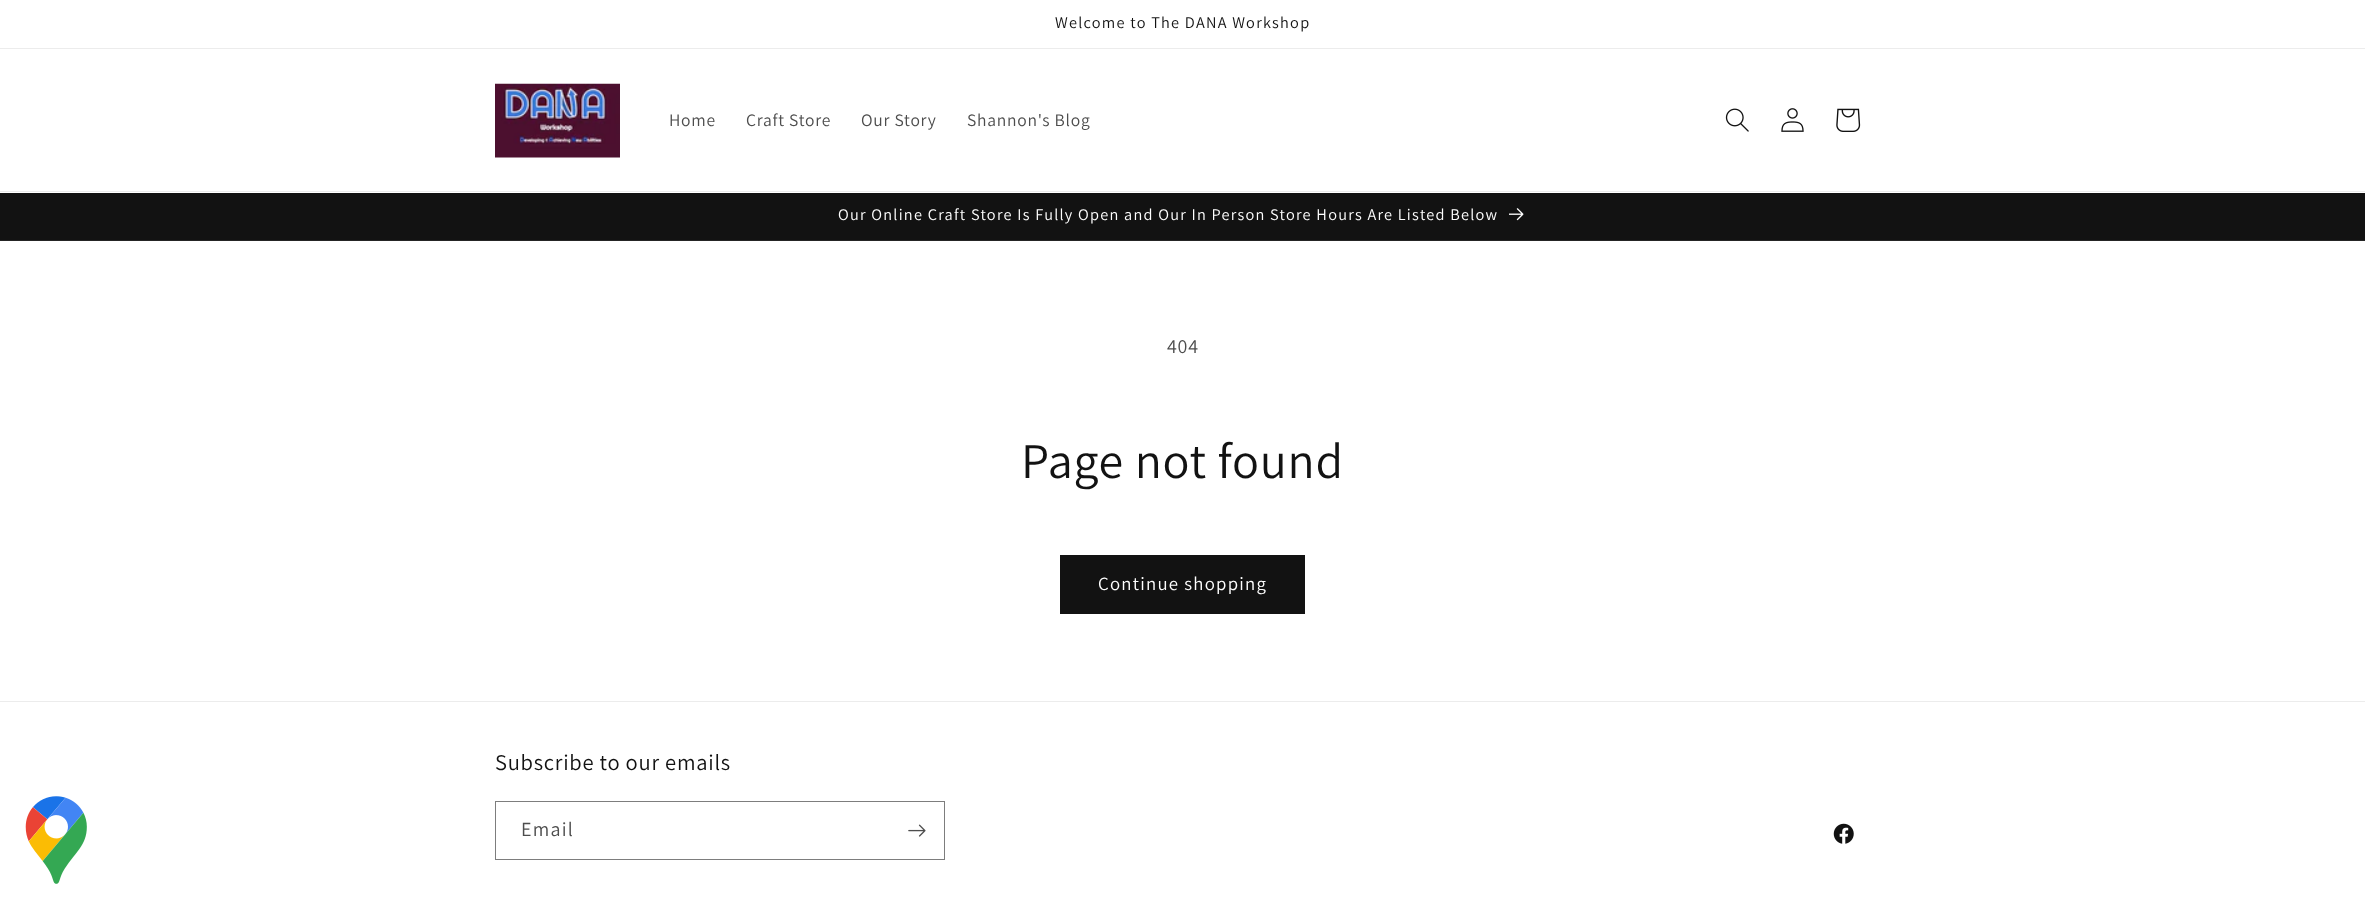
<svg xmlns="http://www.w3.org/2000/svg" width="2365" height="915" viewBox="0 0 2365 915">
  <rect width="100%" height="100%" fill="#ffffff"/>
  <rect x="0" y="48" width="2365" height="1" fill="#ececec"/>
  <text x="1055" y="28" font-family="Assistant" font-size="16.25" letter-spacing="1.25" fill="#121212">Welcome to The DANA Workshop</text>
  <rect x="0" y="191" width="2365" height="1" fill="#ececec"/>
  <image x="495" y="83" width="125" height="75" href="img1.png"/>
  <text x="669" y="126" font-family="Assistant" font-size="17.5" letter-spacing="0.75" fill="#4d4d4d">Home</text>
  <text x="746" y="126" font-family="Assistant" font-size="17.5" letter-spacing="0.75" fill="#4d4d4d">Craft Store</text>
  <text x="861" y="126" font-family="Assistant" font-size="17.5" letter-spacing="0.75" fill="#4d4d4d">Our Story</text>
  <text x="967" y="126" font-family="Assistant" font-size="17.5" letter-spacing="0.75" fill="#4d4d4d">Shannon's Blog</text>
  <image x="1725" y="108" width="24" height="24" href="img2.png"/>
  <image x="1781" y="108" width="23" height="24" href="img3.png"/>
  <image x="1836" y="108" width="25" height="24" href="img4.png"/>
  <rect x="0" y="193" width="2365" height="47" fill="#121212"/>
  <rect x="0" y="240" width="2365" height="1" fill="#252525"/>
  <text x="838" y="220" font-family="Assistant" font-size="16.25" letter-spacing="1.25" fill="#ffffff">Our Online Craft Store Is Fully Open and Our In Person Store Hours Are Listed Below</text>
  <image x="1509" y="208" width="15" height="13" href="img5.png"/>
  <text x="1167" y="353" font-family="Assistant" font-size="20" letter-spacing="0.75" fill="#4d4d4d">404</text>
  <text x="1021" y="478" font-family="Assistant" font-size="50" letter-spacing="0.75" fill="#121212">Page not found</text>
  <rect x="1060" y="555" width="245" height="59" fill="#121212"/>
  <text x="1098" y="590" font-family="Assistant" font-size="18.75" letter-spacing="1.25" fill="#ffffff">Continue shopping</text>
  <image x="25" y="796" width="62" height="88" href="img6.png"/>
  <rect x="0" y="701" width="2365" height="1" fill="#ececec"/>
  <text x="495" y="770" font-family="Assistant" font-size="22.5" letter-spacing="0.75" fill="#121212">Subscribe to our emails</text>
  <rect x="495.5" y="801.5" width="449" height="58" fill="none" stroke="#7d7d7d"/>
  <text x="521" y="836" font-family="Assistant" font-size="20" letter-spacing="1.25" fill="#4d4d4d">Email</text>
  <image x="908" y="824" width="18" height="13" href="img7.png"/>
  <image x="1833" y="823" width="21" height="21" href="img8.png"/>
</svg>
